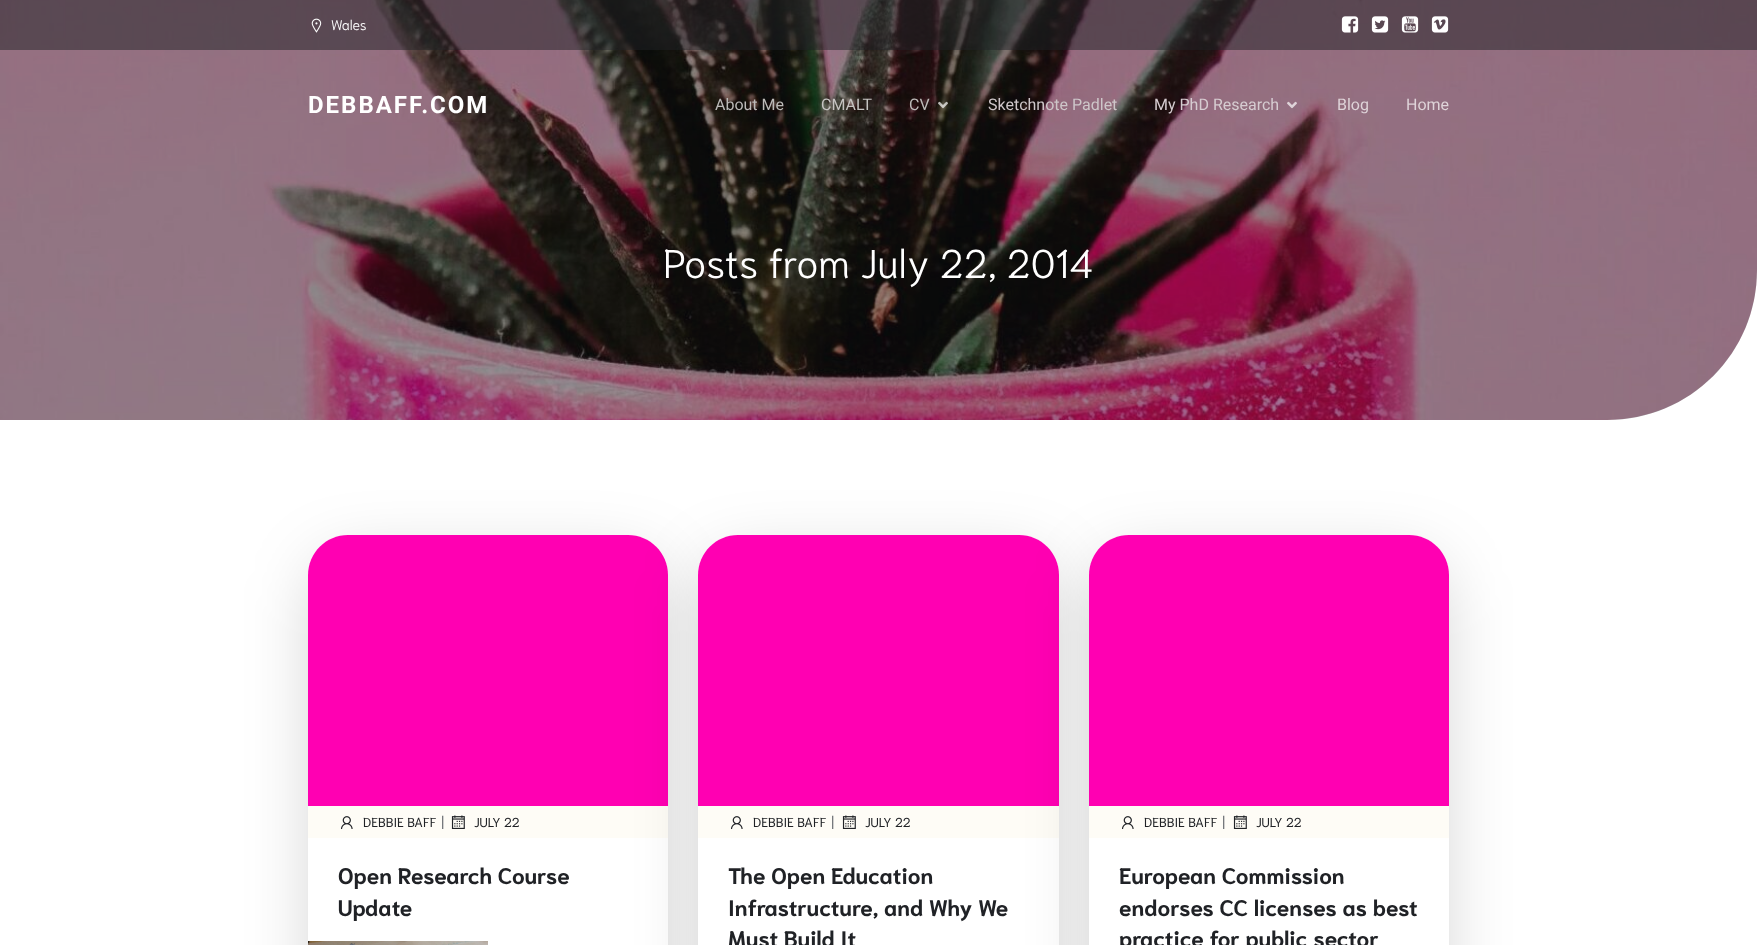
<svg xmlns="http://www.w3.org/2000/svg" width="1757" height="945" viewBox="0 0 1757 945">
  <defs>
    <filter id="blur1" x="-50%" y="-200%" width="200%" height="500%"><feGaussianBlur stdDeviation="35.5"/></filter>
  </defs>
  <rect width="100%" height="100%" fill="#ffffff"/>
  <image x="0" y="0" width="1757" height="420" href="img8.png"/>
  <path d="M0 0H1757V270C1757 353 1690 420 1607 420H0Z" fill="#111219" fill-opacity="0.4"/>
  <rect x="0" y="0" width="1757" height="50" fill="#202226" fill-opacity="0.5"/>
  <image x="311" y="18" width="11" height="15" href="img1.png"/>
  <text x="331" y="30" font-family="Niramit" font-size="14" font-weight="300" fill="#ffffff">Wales</text>
  <image x="1341" y="16" width="18" height="17" href="img2.png"/>
  <image x="1371" y="16" width="18" height="17" href="img3.png"/>
  <image x="1401" y="16" width="18" height="17" href="img4.png"/>
  <image x="1431" y="16" width="18" height="17" href="img5.png"/>
  <text x="308" y="113" font-family="Roboto" font-size="24" font-weight="bold" letter-spacing="2" fill="#ffffff">DEBBAFF.COM</text>
  <text x="715" y="110" font-family="Roboto" font-size="16" fill="#bcbab8">About Me</text>
  <text x="821" y="110" font-family="Roboto" font-size="16" fill="#c6c4c2">CMALT</text>
  <text x="909" y="110" font-family="Roboto" font-size="16" fill="#bcbab8">CV</text>
  <image x="938" y="101" width="10" height="8" href="img6.png"/>
  <text x="988" y="110" font-family="Roboto" font-size="16" fill="#cec6c9">Sketchnote Padlet</text>
  <text x="1154" y="110" font-family="Roboto" font-size="16" fill="#d6ccd1">My PhD Research</text>
  <image x="1287" y="101" width="10" height="8" href="img7.png"/>
  <text x="1337" y="110" font-family="Roboto" font-size="16" fill="#dfd4d9">Blog</text>
  <text x="1406" y="110" font-family="Roboto" font-size="16" fill="#dfd4d9">Home</text>
  <text x="663" y="278" font-family="Niramit" font-size="40" font-weight="300" fill="#ffffff">Posts from July 22, 2014</text>
  <rect x="318" y="564" width="340" height="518" rx="30" fill="#000000" fill-opacity="0.2" filter="url(#blur1)"/>
  <rect x="308" y="535" width="360" height="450" rx="40" fill="#ffffff"/>
  <path d="M348 535H628C650 535 668 553 668 575V806H308V575C308 553 326 535 348 535Z" fill="#ff00b2"/>
  <rect x="308" y="806" width="360" height="32" fill="#fefcf6"/>
  <image x="341" y="816" width="12" height="13" href="img9.png"/>
  <text x="363" y="827" font-family="Niramit" font-size="13" fill="#202226">DEBBIE BAFF</text>
  <text x="441" y="827" font-family="Roboto" font-size="16" font-weight="300" fill="#131925">|</text>
  <image x="451" y="815" width="14" height="14" href="img10.png"/>
  <text x="474" y="827" font-family="Niramit" font-size="13" fill="#202226">JULY 22</text>
  <text x="338" y="884" font-family="Niramit" font-size="22.4" font-weight="bold" fill="#202226">Open Research Course</text>
  <text x="338" y="916" font-family="Niramit" font-size="22.4" font-weight="bold" fill="#202226">Update</text>
  <image x="308" y="941" width="180" height="4" href="img11.png"/>
  <rect x="708" y="564" width="341" height="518" rx="30" fill="#000000" fill-opacity="0.2" filter="url(#blur1)"/>
  <rect x="698" y="535" width="361" height="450" rx="40" fill="#ffffff"/>
  <path d="M738 535H1019C1041 535 1059 553 1059 575V806H698V575C698 553 716 535 738 535Z" fill="#ff00b2"/>
  <rect x="698" y="806" width="361" height="32" fill="#fefcf6"/>
  <image x="731" y="816" width="12" height="13" href="img9.png"/>
  <text x="753" y="827" font-family="Niramit" font-size="13" fill="#202226">DEBBIE BAFF</text>
  <text x="831" y="827" font-family="Roboto" font-size="16" font-weight="300" fill="#131925">|</text>
  <image x="842" y="815" width="14" height="14" href="img10.png"/>
  <text x="865" y="827" font-family="Niramit" font-size="13" fill="#202226">JULY 22</text>
  <text x="728" y="884" font-family="Niramit" font-size="22.4" font-weight="bold" fill="#202226">The Open Education</text>
  <text x="728" y="916" font-family="Niramit" font-size="22.4" font-weight="bold" fill="#202226">Infrastructure, and Why We</text>
  <text x="728" y="947" font-family="Niramit" font-size="22.4" font-weight="bold" fill="#202226">Must Build It</text>
  <rect x="1099" y="564" width="340" height="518" rx="30" fill="#000000" fill-opacity="0.2" filter="url(#blur1)"/>
  <rect x="1089" y="535" width="360" height="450" rx="40" fill="#ffffff"/>
  <path d="M1129 535H1409C1431 535 1449 553 1449 575V806H1089V575C1089 553 1107 535 1129 535Z" fill="#ff00b2"/>
  <rect x="1089" y="806" width="360" height="32" fill="#fefcf6"/>
  <image x="1122" y="816" width="12" height="13" href="img9.png"/>
  <text x="1144" y="827" font-family="Niramit" font-size="13" fill="#202226">DEBBIE BAFF</text>
  <text x="1222" y="827" font-family="Roboto" font-size="16" font-weight="300" fill="#131925">|</text>
  <image x="1233" y="815" width="14" height="14" href="img10.png"/>
  <text x="1256" y="827" font-family="Niramit" font-size="13" fill="#202226">JULY 22</text>
  <text x="1119" y="884" font-family="Niramit" font-size="22.4" font-weight="bold" fill="#202226">European Commission</text>
  <text x="1119" y="916" font-family="Niramit" font-size="22.4" font-weight="bold" fill="#202226">endorses CC licenses as best</text>
  <text x="1119" y="947" font-family="Niramit" font-size="22.4" font-weight="bold" fill="#202226">practice for public sector</text>
</svg>
